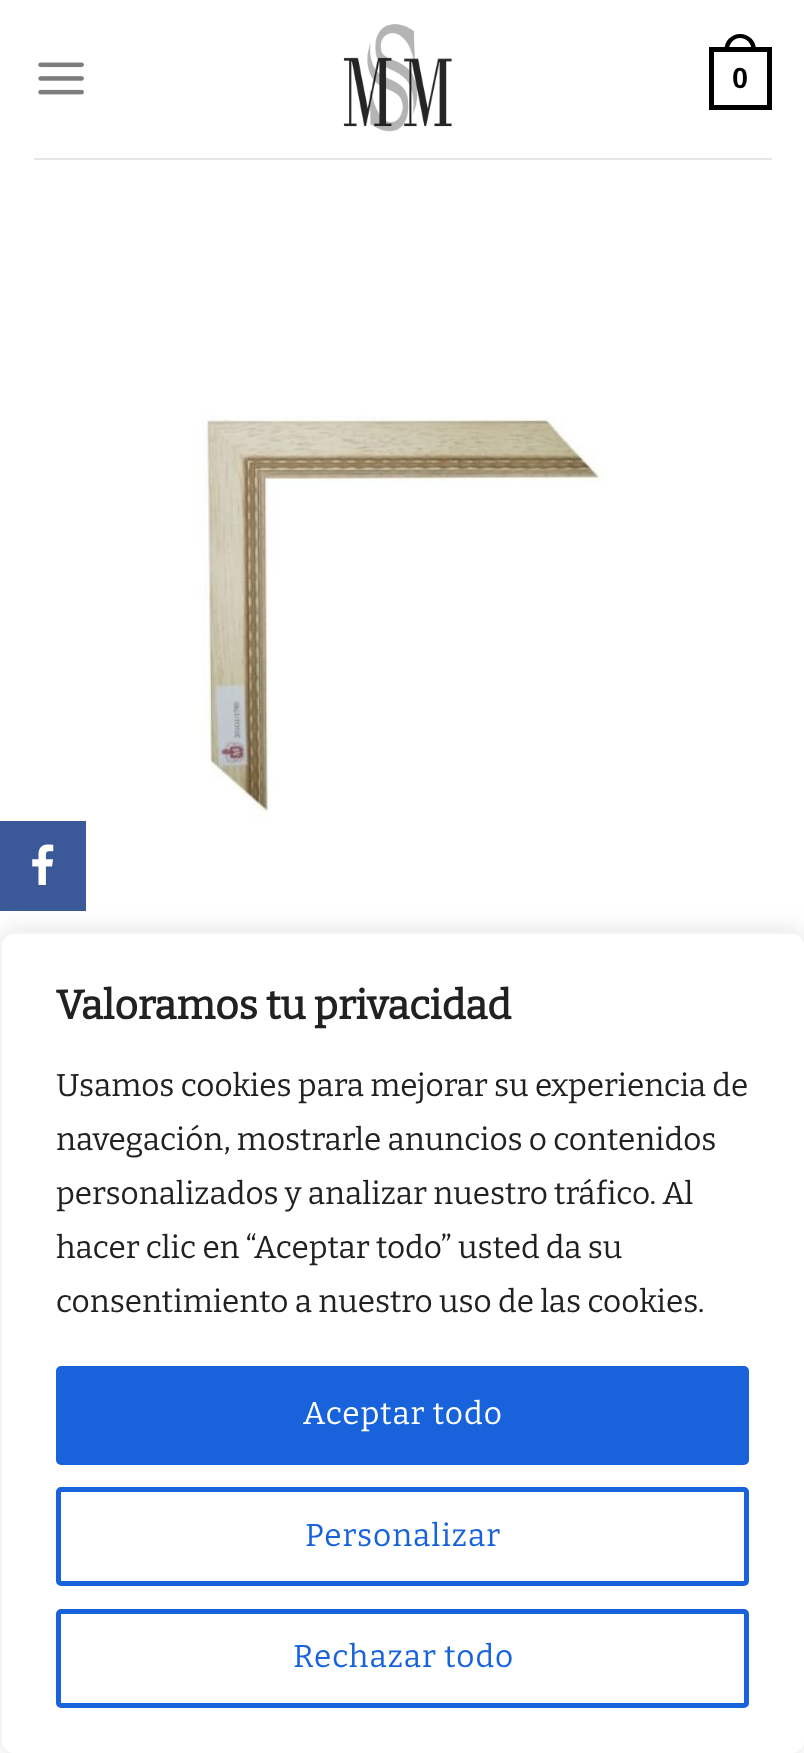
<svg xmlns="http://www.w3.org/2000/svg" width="804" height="1753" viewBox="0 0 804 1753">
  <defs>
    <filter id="blur1" x="-50%" y="-200%" width="200%" height="500%"><feGaussianBlur stdDeviation="11"/></filter>
  </defs>
  <rect width="100%" height="100%" fill="#ffffff"/>
  <image x="38" y="62" width="46" height="33" href="img1.png"/>
  <image x="343" y="24" width="109" height="108" href="img2.png"/>
  <rect x="711.5" y="49.5" width="58" height="58" fill="none" stroke="#000000" stroke-width="5"/>
  <path d="M740 34C749 34 756 41 756 49.5V52H724.5V49.5C724.5 41 731.5 34 740 34ZM740 38C746.5 38 751.5 43.5 751.5 49.5V52H729V49.5C729 43.5 734 38 740 38Z" fill="#000000" fill-rule="evenodd"/>
  <text x="732" y="88" font-family="Liberation Sans" font-size="29" font-weight="bold" fill="#000000">0</text>
  <rect x="34" y="158" width="738" height="2" fill="#e6e6e6"/>
  <image x="197" y="415" width="407" height="403" href="img3.png"/>
  <rect x="0" y="821" width="86" height="90" fill="#3b5998"/>
  <image x="32" y="844" width="22" height="41" href="img4.png"/>
  <rect x="0" y="929" width="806" height="824" rx="14" fill="#acabab" fill-opacity="0.3" filter="url(#blur1)"/>
  <rect x="1" y="933" width="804" height="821" rx="13" fill="#ffffff" stroke="#f4f4f4" stroke-width="2"/>
  <text x="56" y="1019" font-family="Bitter" font-size="40.5" font-weight="bold" fill="#212121">Valoramos tu privacidad</text>
  <text x="56" y="1096" font-family="Bitter" font-size="31.5" fill="#212121">Usamos cookies para mejorar su experiencia de</text>
  <text x="56" y="1150" font-family="Bitter" font-size="31.5" fill="#212121">navegación, mostrarle anuncios o contenidos</text>
  <text x="56" y="1204" font-family="Bitter" font-size="31.5" fill="#212121">personalizados y analizar nuestro tráfico. Al</text>
  <text x="56" y="1258" font-family="Bitter" font-size="31.5" fill="#212121">hacer clic en “Aceptar todo” usted da su</text>
  <text x="56" y="1312" font-family="Bitter" font-size="31.5" fill="#212121">consentimiento a nuestro uso de las cookies.</text>
  <rect x="58.5" y="1368.5" width="688" height="94" rx="2.5" fill="#1863dc" stroke="#1863dc" stroke-width="5"/>
  <text x="303" y="1424" font-family="Bitter" font-size="31.5" letter-spacing="1" fill="#ffffff">Aceptar todo</text>
  <rect x="58.5" y="1489.5" width="688" height="94" rx="2.5" fill="none" stroke="#1863dc" stroke-width="5"/>
  <text x="305" y="1546" font-family="Bitter" font-size="31.5" letter-spacing="1" fill="#1863dc">Personalizar</text>
  <rect x="58.5" y="1611.5" width="688" height="94" rx="2.5" fill="none" stroke="#1863dc" stroke-width="5"/>
  <text x="293" y="1667" font-family="Bitter" font-size="31.5" letter-spacing="1" fill="#1863dc">Rechazar todo</text>
</svg>
